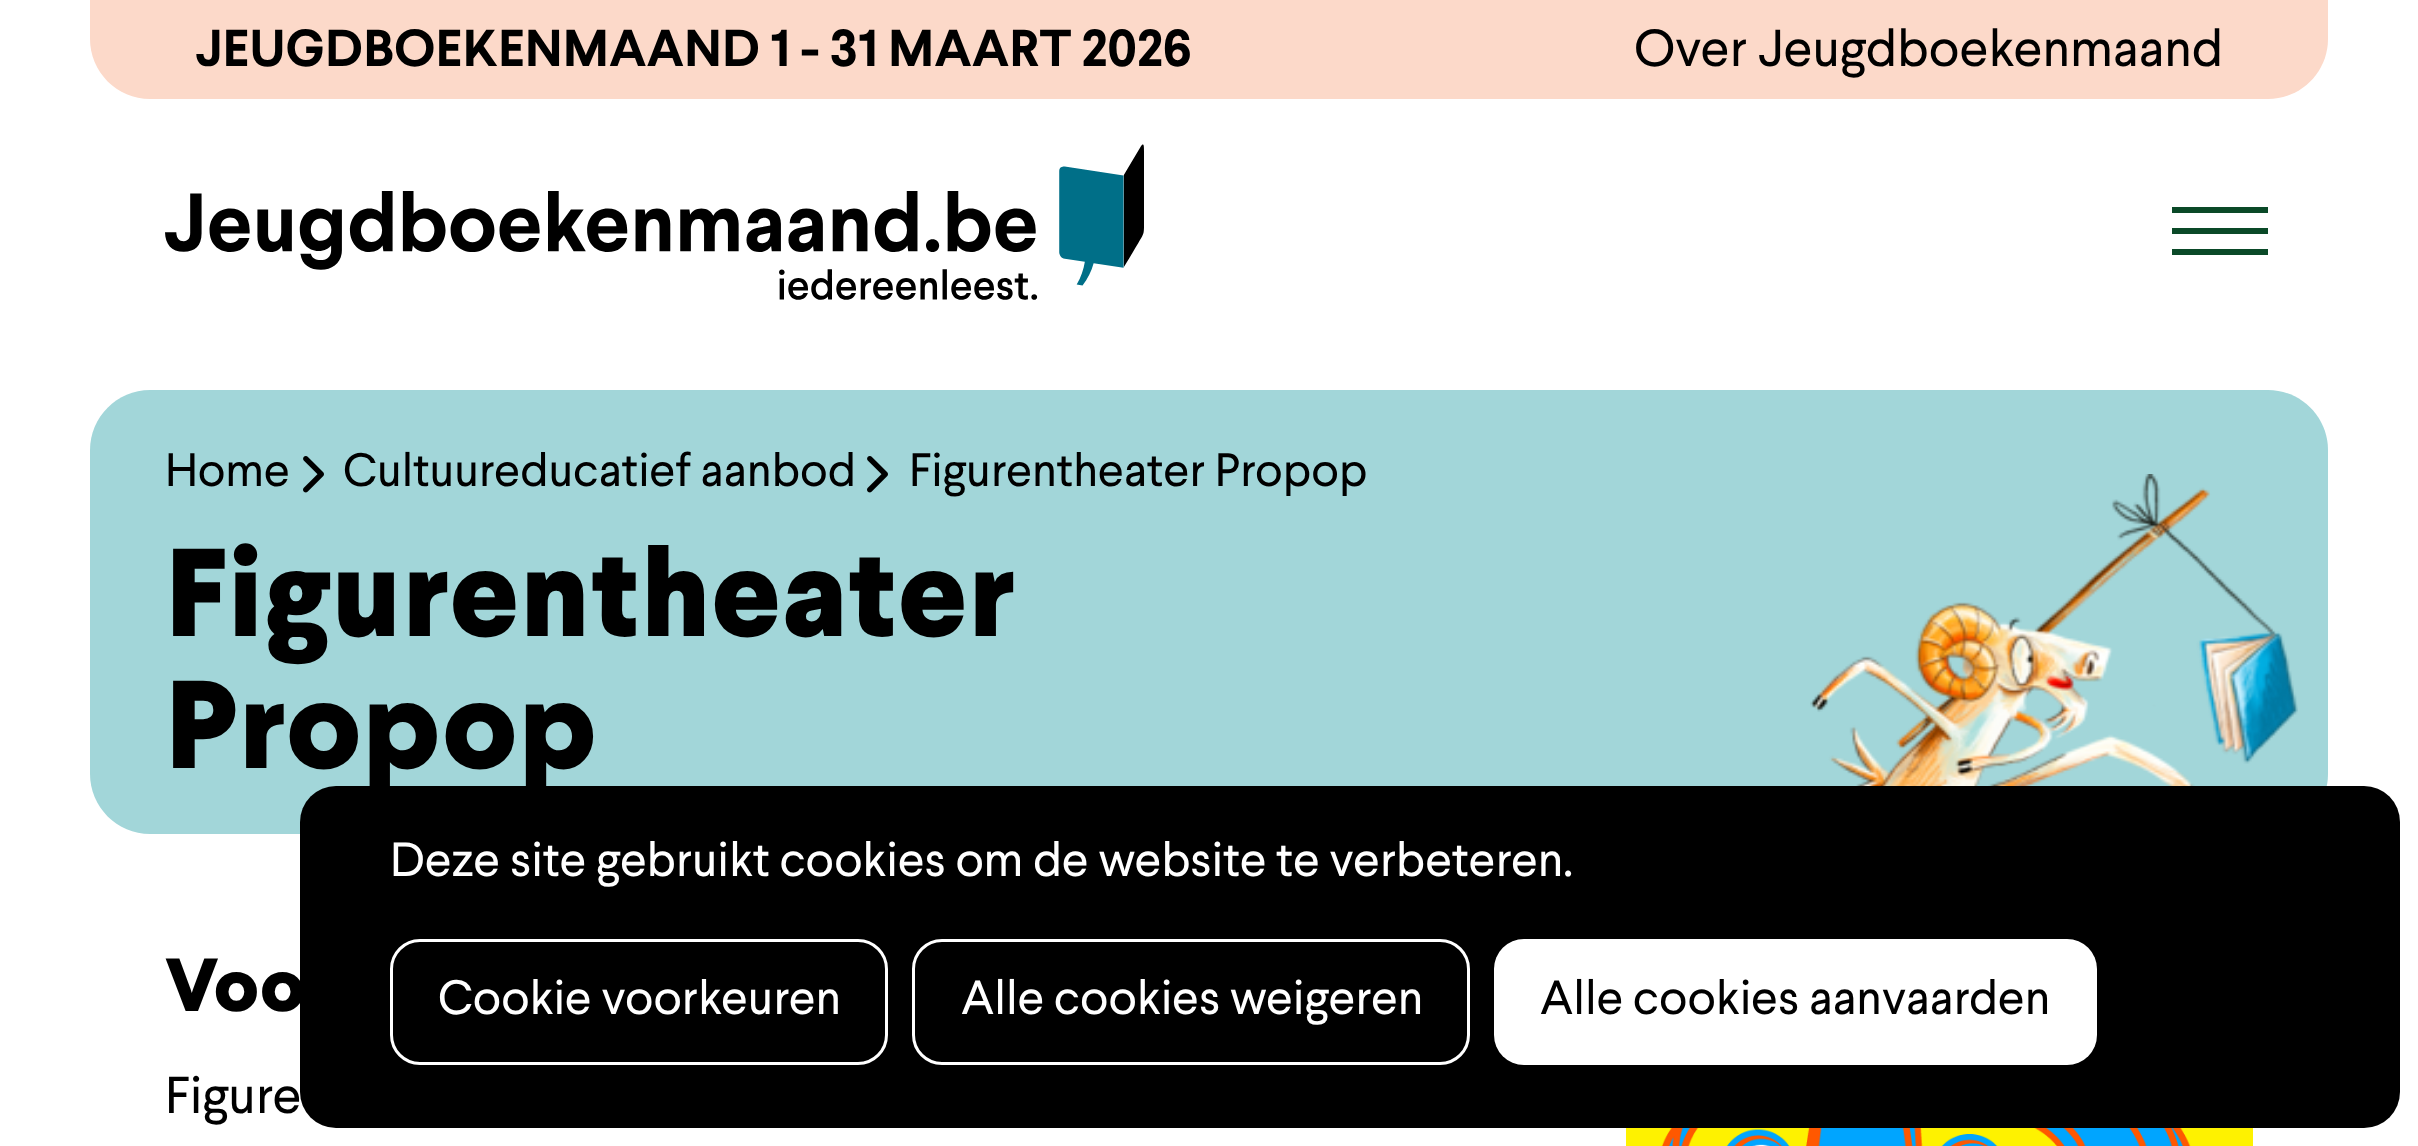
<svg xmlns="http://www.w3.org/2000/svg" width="2418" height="1146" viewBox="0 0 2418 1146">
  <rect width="100%" height="100%" fill="#ffffff"/>
  <path d="M90 0H2328V39C2328 72 2301 99 2268 99H150C117 99 90 72 90 39Z" fill="#fcd9c9"/>
  <text x="195" y="66" font-family="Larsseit" font-size="51.9" font-weight="bold" fill="#000000">JEUGDBOEKENMAAND 1 - 31 MAART 2026</text>
  <text x="1634" y="66" font-family="Larsseit" font-size="51.9" fill="#000000">Over Jeugdboekenmaand</text>
  <image x="165" y="144" width="979" height="156" href="img1.png"/>
  <rect x="2172" y="207" width="96" height="6" fill="#0a4928"/>
  <rect x="2172" y="228" width="96" height="6" fill="#0a4928"/>
  <rect x="2172" y="249" width="96" height="6" fill="#0a4928"/>
  <path d="M150 390H2268C2301 390 2328 417 2328 450V540H90V450C90 417 117 390 150 390Z" fill="#a2d6d9"/>
  <text x="165" y="486" font-family="Larsseit" font-size="46.75" fill="#000000">Home</text>
  <image x="303" y="456" width="21" height="37" href="img2.png"/>
  <text x="343" y="486" font-family="Larsseit" font-size="46.75" fill="#000000">Cultuureducatief aanbod</text>
  <image x="867" y="456" width="21" height="37" href="img2.png"/>
  <text x="909" y="486" font-family="Larsseit" font-size="46.75" fill="#000000">Figurentheater Propop</text>
  <path d="M90 540H2328V774C2328 807 2301 834 2268 834H150C117 834 90 807 90 774Z" fill="#a2d6d9"/>
  <text x="165" y="636" font-family="Larsseit" font-size="124.75" font-weight="800" fill="#000000">Figurentheater</text>
  <image x="1810" y="474" width="488" height="312" href="img3.png"/>
  <text x="165" y="768" font-family="Larsseit" font-size="124.75" font-weight="800" fill="#000000">Propop</text>
  <text x="165" y="1011" font-family="Larsseit" font-size="75" font-weight="800" fill="#000000">Voo</text>
  <text x="165" y="1113" font-family="Larsseit" font-size="51.9" fill="#000000">Figure</text>
  <image x="1626" y="1128" width="627" height="18" href="img4.png"/>
  <rect x="300" y="786" width="2100" height="342" rx="36" fill="#000000"/>
  <text x="390" y="876" font-family="Larsseit" font-size="48" fill="#ffffff">Deze site gebruikt cookies om de website te verbeteren.</text>
  <rect x="391.5" y="940.5" width="495" height="123" rx="28.5" fill="none" stroke="#ffffff" stroke-width="3"/>
  <text x="438" y="1014" font-family="Larsseit" font-size="48" fill="#ffffff">Cookie voorkeuren</text>
  <rect x="913.5" y="940.5" width="555" height="123" rx="28.5" fill="none" stroke="#ffffff" stroke-width="3"/>
  <text x="961" y="1014" font-family="Larsseit" font-size="48" fill="#ffffff">Alle cookies weigeren</text>
  <rect x="1494" y="939" width="603" height="126" rx="30" fill="#ffffff"/>
  <text x="1540" y="1014" font-family="Larsseit" font-size="48" fill="#000000">Alle cookies aanvaarden</text>
</svg>
